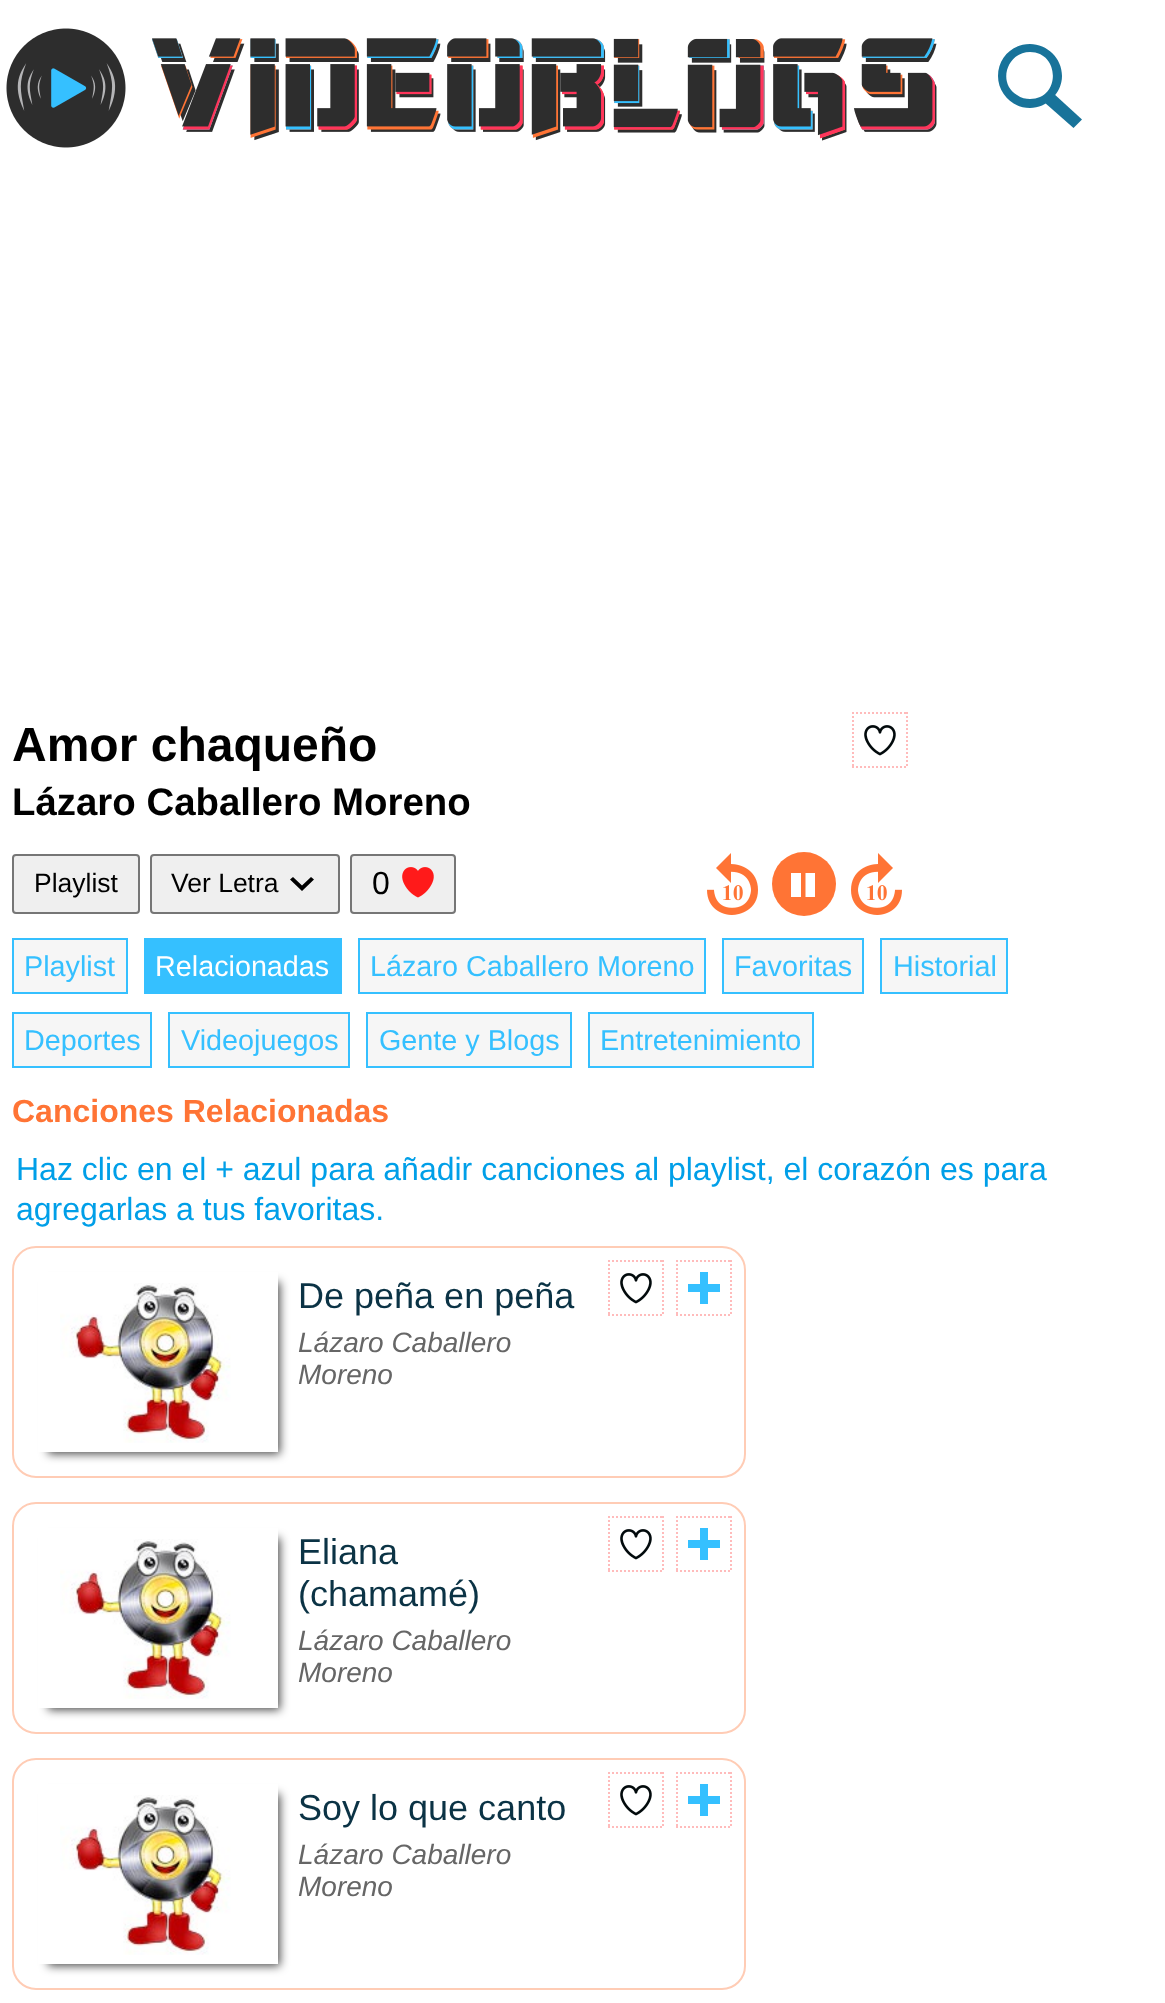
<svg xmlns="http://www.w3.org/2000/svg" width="1165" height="2003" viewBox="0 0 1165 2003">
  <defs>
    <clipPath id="clip1"><path d="M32 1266H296V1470H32ZM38 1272H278V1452H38Z" clip-rule="evenodd"/></clipPath>
    <filter id="blur1" x="-50%" y="-200%" width="200%" height="500%"><feGaussianBlur stdDeviation="5"/></filter>
    <clipPath id="clip2"><path d="M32 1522H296V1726H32ZM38 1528H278V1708H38Z" clip-rule="evenodd"/></clipPath>
    <clipPath id="clip3"><path d="M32 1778H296V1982H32ZM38 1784H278V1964H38Z" clip-rule="evenodd"/></clipPath>
  </defs>
  <rect width="100%" height="100%" fill="#ffffff"/>
  <image x="6" y="28" width="931" height="120" href="img1.png"/>
  <path d="M1030 44C1047 44 1062 58 1062 76C1062 93 1047 108 1030 108C1012 108 998 93 998 76C998 58 1012 44 1030 44ZM1030 52C1060 52 1061 99 1030 99C1026 99 1021 98 1017 95C997 83 1007 52 1030 52Z" fill="#18739a" fill-rule="evenodd"/>
  <path d="M1053 93L1082 119.5L1073.5 128L1044 102Z" fill="#18739a" fill-rule="evenodd"/>
  <text x="12" y="761" font-family="Liberation Sans" font-size="48" font-weight="bold" fill="#000000">Amor chaqueño</text>
  <path d="M852 713H908M907 712V768M852 767H908M853 712V768" fill="none" stroke="#ffbbbb" stroke-width="2" stroke-dasharray="2 2"/>
  <image x="864" y="725" width="32" height="31" href="img2.png"/>
  <text x="12" y="815" font-family="Liberation Sans" font-size="38.4" font-weight="bold" fill="#000000">Lázaro Caballero Moreno</text>
  <image x="707" y="853" width="51" height="62" href="img3.png"/>
  <circle cx="804" cy="884" r="32" fill="#ff7435"/>
  <path d="M791 873H801V897H791ZM805.5 873H815V897H805.5Z" fill="#ffffff" fill-rule="evenodd"/>
  <image x="851" y="853" width="51" height="62" href="img4.png"/>
  <rect x="13" y="855" width="126" height="58" rx="3" fill="#efefef" stroke="#767676" stroke-width="2"/>
  <text x="34" y="892" font-family="Liberation Sans" font-size="26.5" fill="#000000">Playlist</text>
  <rect x="151" y="855" width="188" height="58" rx="3" fill="#efefef" stroke="#767676" stroke-width="2"/>
  <text x="171" y="892" font-family="Liberation Sans" font-size="26.5" fill="#000000">Ver Letra</text>
  <path d="M311 877L314 879.5L302 891L290 879.5L293 877L302 885.5Z" fill="#000000" fill-rule="evenodd"/>
  <rect x="351" y="855" width="104" height="58" rx="3" fill="#efefef" stroke="#767676" stroke-width="2"/>
  <text x="372" y="894" font-family="Liberation Sans" font-size="32" fill="#000000">0</text>
  <image x="402" y="867" width="32" height="31" href="img5.png"/>
  <rect x="13" y="939" width="114" height="54" fill="#f6f6f6" stroke="#35c0ff" stroke-width="2"/>
  <text x="24" y="976" font-family="Liberation Sans" font-size="28.75" fill="#35c0ff">Playlist</text>
  <rect x="144" y="938" width="198" height="56" fill="#35c0ff"/>
  <text x="155" y="976" font-family="Liberation Sans" font-size="28.75" fill="#ffffff">Relacionadas</text>
  <rect x="359" y="939" width="346" height="54" fill="#f6f6f6" stroke="#35c0ff" stroke-width="2"/>
  <text x="370" y="976" font-family="Liberation Sans" font-size="28.75" fill="#35c0ff">Lázaro Caballero Moreno</text>
  <rect x="723" y="939" width="140" height="54" fill="#f6f6f6" stroke="#35c0ff" stroke-width="2"/>
  <text x="734" y="976" font-family="Liberation Sans" font-size="28.75" fill="#35c0ff">Favoritas</text>
  <rect x="881" y="939" width="126" height="54" fill="#f6f6f6" stroke="#35c0ff" stroke-width="2"/>
  <text x="893" y="976" font-family="Liberation Sans" font-size="28.75" fill="#35c0ff">Historial</text>
  <rect x="13" y="1013" width="138" height="54" fill="#f6f6f6" stroke="#35c0ff" stroke-width="2"/>
  <text x="24" y="1050" font-family="Liberation Sans" font-size="28.75" fill="#35c0ff">Deportes</text>
  <rect x="169" y="1013" width="180" height="54" fill="#f6f6f6" stroke="#35c0ff" stroke-width="2"/>
  <text x="181" y="1050" font-family="Liberation Sans" font-size="28.75" fill="#35c0ff">Videojuegos</text>
  <rect x="367" y="1013" width="204" height="54" fill="#f6f6f6" stroke="#35c0ff" stroke-width="2"/>
  <text x="379" y="1050" font-family="Liberation Sans" font-size="28.75" fill="#35c0ff">Gente y Blogs</text>
  <rect x="589" y="1013" width="224" height="54" fill="#f6f6f6" stroke="#35c0ff" stroke-width="2"/>
  <text x="600" y="1050" font-family="Liberation Sans" font-size="28.75" fill="#35c0ff">Entretenimiento</text>
  <text x="12" y="1122" font-family="Liberation Sans" font-size="32" font-weight="bold" fill="#ff7435">Canciones Relacionadas</text>
  <text x="16" y="1180" font-family="Liberation Sans" font-size="32" fill="#009fe8">Haz clic en el + azul para añadir canciones al playlist, el corazón es para</text>
  <text x="16" y="1220" font-family="Liberation Sans" font-size="32" fill="#009fe8">agregarlas a tus favoritas.</text>
  <rect x="13" y="1247" width="732" height="230" rx="23" fill="none" stroke="#ffccb5" stroke-width="2"/>
  <g clip-path="url(#clip1)">
    <rect x="48" y="1282" width="232" height="172" fill="#000000" fill-opacity="0.7" filter="url(#blur1)"/>
  </g>
  <image x="60" y="1283" width="171" height="160" href="img6.png"/>
  <text x="298" y="1308" font-family="Liberation Sans" font-size="36" fill="#0b3345">De peña en peña</text>
  <text x="298" y="1352" font-family="Liberation Sans" font-size="28" font-style="italic" fill="#666666">Lázaro Caballero</text>
  <text x="298" y="1384" font-family="Liberation Sans" font-size="28" font-style="italic" fill="#666666">Moreno</text>
  <path d="M608 1261H664M663 1260V1316M608 1315H664M609 1260V1316" fill="none" stroke="#ffbbbb" stroke-width="2" stroke-dasharray="2 2"/>
  <image x="620" y="1273" width="32" height="31" href="img2.png"/>
  <path d="M676 1261H732M731 1260V1316M676 1315H732M677 1260V1316" fill="none" stroke="#ffbbbb" stroke-width="2" stroke-dasharray="2 2"/>
  <image x="688" y="1272" width="32" height="32" href="img7.png"/>
  <rect x="13" y="1503" width="732" height="230" rx="23" fill="none" stroke="#ffccb5" stroke-width="2"/>
  <g clip-path="url(#clip2)">
    <rect x="48" y="1538" width="232" height="172" fill="#000000" fill-opacity="0.7" filter="url(#blur1)"/>
  </g>
  <image x="60" y="1539" width="171" height="160" href="img6.png"/>
  <text x="298" y="1564" font-family="Liberation Sans" font-size="36" fill="#0b3345">Eliana</text>
  <text x="298" y="1606" font-family="Liberation Sans" font-size="36" fill="#0b3345">(chamamé)</text>
  <text x="298" y="1650" font-family="Liberation Sans" font-size="28" font-style="italic" fill="#666666">Lázaro Caballero</text>
  <text x="298" y="1682" font-family="Liberation Sans" font-size="28" font-style="italic" fill="#666666">Moreno</text>
  <path d="M608 1517H664M663 1516V1572M608 1571H664M609 1516V1572" fill="none" stroke="#ffbbbb" stroke-width="2" stroke-dasharray="2 2"/>
  <image x="620" y="1529" width="32" height="31" href="img2.png"/>
  <path d="M676 1517H732M731 1516V1572M676 1571H732M677 1516V1572" fill="none" stroke="#ffbbbb" stroke-width="2" stroke-dasharray="2 2"/>
  <image x="688" y="1528" width="32" height="32" href="img7.png"/>
  <rect x="13" y="1759" width="732" height="230" rx="23" fill="none" stroke="#ffccb5" stroke-width="2"/>
  <g clip-path="url(#clip3)">
    <rect x="48" y="1794" width="232" height="172" fill="#000000" fill-opacity="0.7" filter="url(#blur1)"/>
  </g>
  <image x="60" y="1795" width="171" height="160" href="img6.png"/>
  <text x="298" y="1820" font-family="Liberation Sans" font-size="36" fill="#0b3345">Soy lo que canto</text>
  <text x="298" y="1864" font-family="Liberation Sans" font-size="28" font-style="italic" fill="#666666">Lázaro Caballero</text>
  <text x="298" y="1896" font-family="Liberation Sans" font-size="28" font-style="italic" fill="#666666">Moreno</text>
  <path d="M608 1773H664M663 1772V1828M608 1827H664M609 1772V1828" fill="none" stroke="#ffbbbb" stroke-width="2" stroke-dasharray="2 2"/>
  <image x="620" y="1785" width="32" height="31" href="img2.png"/>
  <path d="M676 1773H732M731 1772V1828M676 1827H732M677 1772V1828" fill="none" stroke="#ffbbbb" stroke-width="2" stroke-dasharray="2 2"/>
  <image x="688" y="1784" width="32" height="32" href="img7.png"/>
</svg>
